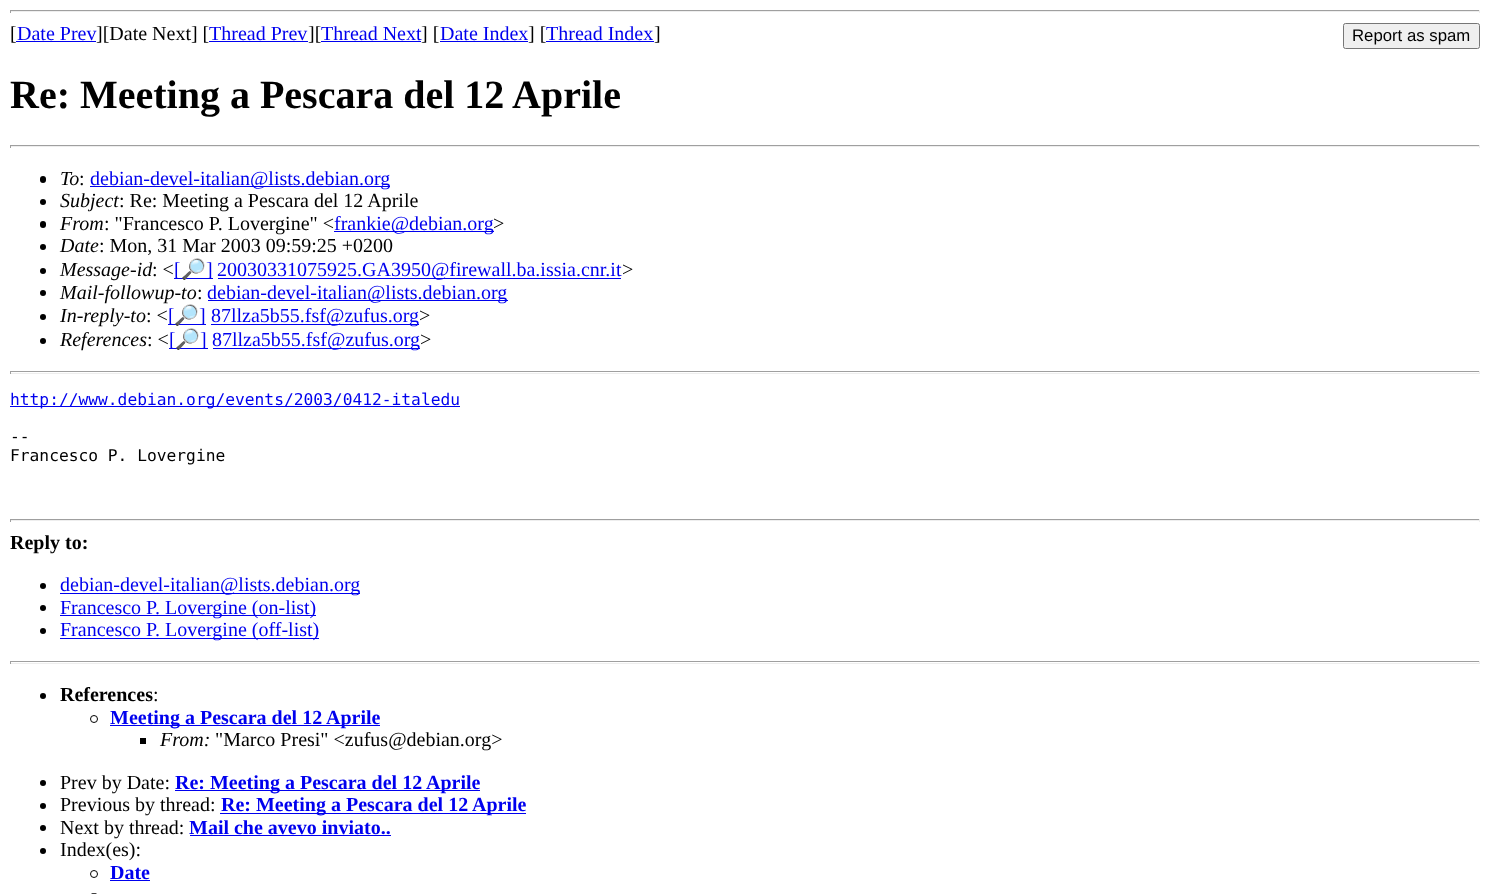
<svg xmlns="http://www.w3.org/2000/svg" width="1490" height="894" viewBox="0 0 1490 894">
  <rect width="100%" height="100%" fill="#ffffff"/>
  <rect x="10" y="10" width="1470" height="1" fill="#9f9f9f"/>
  <rect x="1479" y="10" width="1" height="3" fill="#eeeeee"/>
  <rect x="10" y="11" width="1470" height="1" fill="#eeeeee"/>
  <rect x="10" y="10" width="1" height="3" fill="#9f9f9f"/>
  <text x="10" y="40" font-family="Liberation Serif" font-size="20" fill="#000000">[</text>
  <text x="17" y="40" font-family="Liberation Serif" font-size="20" fill="#0000ee">Date Prev</text>
  <rect x="16" y="41" width="80" height="1" fill="#0000ee"/>
  <text x="96" y="40" font-family="Liberation Serif" font-size="20" fill="#000000">][Date Next] [</text>
  <text x="209" y="40" font-family="Liberation Serif" font-size="20" fill="#0000ee">Thread Prev</text>
  <rect x="209" y="41" width="99" height="1" fill="#0000ee"/>
  <text x="308" y="40" font-family="Liberation Serif" font-size="20" fill="#000000">][</text>
  <text x="321" y="40" font-family="Liberation Serif" font-size="20" fill="#0000ee">Thread Next</text>
  <rect x="321" y="41" width="100" height="1" fill="#0000ee"/>
  <text x="421" y="40" font-family="Liberation Serif" font-size="20" fill="#000000">] [</text>
  <text x="440" y="40" font-family="Liberation Serif" font-size="20" fill="#0000ee">Date Index</text>
  <rect x="440" y="41" width="88" height="1" fill="#0000ee"/>
  <text x="528" y="40" font-family="Liberation Serif" font-size="20" fill="#000000">] [</text>
  <text x="546" y="40" font-family="Liberation Serif" font-size="20" fill="#0000ee">Thread Index</text>
  <rect x="546" y="41" width="108" height="1" fill="#0000ee"/>
  <text x="654" y="40" font-family="Liberation Serif" font-size="20" fill="#000000">]</text>
  <rect x="1343.5" y="23.5" width="136" height="25" rx="2" fill="#efefef" stroke="#767676"/>
  <text x="1352" y="41" font-family="Liberation Sans" font-size="16.75" fill="#000000">Report as spam</text>
  <text x="10" y="108" font-family="Liberation Serif" font-size="40" font-weight="bold" fill="#000000">Re: Meeting a Pescara del 12 Aprile</text>
  <rect x="10" y="145" width="1470" height="1" fill="#9f9f9f"/>
  <rect x="1479" y="145" width="1" height="3" fill="#eeeeee"/>
  <rect x="10" y="146" width="1470" height="1" fill="#eeeeee"/>
  <rect x="10" y="145" width="1" height="3" fill="#9f9f9f"/>
  <rect x="40" y="176" width="6" height="7" rx="3" fill="#000000"/>
  <text x="60" y="185" font-family="Liberation Serif" font-size="20" font-style="italic" fill="#000000">To</text>
  <text x="79" y="185" font-family="Liberation Serif" font-size="20" fill="#000000">:</text>
  <rect x="90" y="186" width="300" height="1" fill="#0000ee"/>
  <text x="90" y="185" font-family="Liberation Serif" font-size="20" fill="#0000ee">debian-devel-italian@lists.debian.org</text>
  <circle cx="43" cy="202" r="3" fill="#000000"/>
  <text x="60" y="207" font-family="Liberation Serif" font-size="20" font-style="italic" fill="#000000">Subject</text>
  <text x="119" y="207" font-family="Liberation Serif" font-size="20" fill="#000000">: Re: Meeting a Pescara del 12 Aprile</text>
  <rect x="40" y="221" width="6" height="7" rx="3" fill="#000000"/>
  <text x="60" y="230" font-family="Liberation Serif" font-size="20" font-style="italic" fill="#000000">From</text>
  <text x="104" y="230" font-family="Liberation Serif" font-size="20" fill="#000000">: "Francesco P. Lovergine" &lt;</text>
  <rect x="334" y="231" width="160" height="1" fill="#0000ee"/>
  <text x="334" y="230" font-family="Liberation Serif" font-size="20" fill="#0000ee">frankie@debian.org</text>
  <text x="493" y="230" font-family="Liberation Serif" font-size="20" fill="#000000">&gt;</text>
  <circle cx="43" cy="247" r="3" fill="#000000"/>
  <text x="60" y="252" font-family="Liberation Serif" font-size="20" font-style="italic" fill="#000000">Date</text>
  <text x="99" y="252" font-family="Liberation Serif" font-size="20" fill="#000000">: Mon, 31 Mar 2003 09:59:25 +0200</text>
  <circle cx="43" cy="271" r="3" fill="#000000"/>
  <text x="60" y="276" font-family="Liberation Serif" font-size="20" font-style="italic" fill="#000000">Message-id</text>
  <text x="152" y="276" font-family="Liberation Serif" font-size="20" fill="#000000">: &lt;</text>
  <rect x="174" y="278" width="39" height="1" fill="#0000ee"/>
  <text x="174" y="276" font-family="Liberation Serif" font-size="20" fill="#0000ee">[</text>
  <text x="181" y="276" font-family="Noto Color Emoji" font-size="20" fill="#0000ee">🔎</text>
  <text x="206" y="276" font-family="Liberation Serif" font-size="20" fill="#0000ee">]</text>
  <rect x="218" y="278" width="403" height="1" fill="#0000ee"/>
  <text x="217" y="276" font-family="Liberation Serif" font-size="20" fill="#0000ee">20030331075925.GA3950@firewall.ba.issia.cnr.it</text>
  <text x="622" y="276" font-family="Liberation Serif" font-size="20" fill="#000000">&gt;</text>
  <circle cx="43" cy="293" r="3" fill="#000000"/>
  <text x="60" y="299" font-family="Liberation Serif" font-size="20" font-style="italic" fill="#000000">Mail-followup-to</text>
  <text x="197" y="299" font-family="Liberation Serif" font-size="20" fill="#000000">:</text>
  <rect x="208" y="300" width="300" height="1" fill="#0000ee"/>
  <text x="207" y="299" font-family="Liberation Serif" font-size="20" fill="#0000ee">debian-devel-italian@lists.debian.org</text>
  <circle cx="43" cy="317" r="3" fill="#000000"/>
  <text x="60" y="322" font-family="Liberation Serif" font-size="20" font-style="italic" fill="#000000">In-reply-to</text>
  <text x="146" y="322" font-family="Liberation Serif" font-size="20" fill="#000000">: &lt;</text>
  <rect x="168" y="324" width="38" height="1" fill="#0000ee"/>
  <text x="168" y="322" font-family="Liberation Serif" font-size="20" fill="#0000ee">[</text>
  <text x="174" y="322" font-family="Noto Color Emoji" font-size="20" fill="#0000ee">🔎</text>
  <text x="199" y="322" font-family="Liberation Serif" font-size="20" fill="#0000ee">]</text>
  <rect x="211" y="324" width="208" height="1" fill="#0000ee"/>
  <text x="211" y="322" font-family="Liberation Serif" font-size="20" fill="#0000ee">87llza5b55.fsf@zufus.org</text>
  <text x="419" y="322" font-family="Liberation Serif" font-size="20" fill="#000000">&gt;</text>
  <circle cx="43" cy="341" r="3" fill="#000000"/>
  <text x="60" y="346" font-family="Liberation Serif" font-size="20" font-style="italic" fill="#000000">References</text>
  <text x="147" y="346" font-family="Liberation Serif" font-size="20" fill="#000000">: &lt;</text>
  <rect x="169" y="348" width="39" height="1" fill="#0000ee"/>
  <text x="169" y="346" font-family="Liberation Serif" font-size="20" fill="#0000ee">[</text>
  <text x="175" y="346" font-family="Noto Color Emoji" font-size="20" fill="#0000ee">🔎</text>
  <text x="200" y="346" font-family="Liberation Serif" font-size="20" fill="#0000ee">]</text>
  <rect x="213" y="348" width="207" height="1" fill="#0000ee"/>
  <text x="212" y="346" font-family="Liberation Serif" font-size="20" fill="#0000ee">87llza5b55.fsf@zufus.org</text>
  <text x="420" y="346" font-family="Liberation Serif" font-size="20" fill="#000000">&gt;</text>
  <rect x="10" y="371" width="1470" height="1" fill="#9f9f9f"/>
  <rect x="1479" y="371" width="1" height="3" fill="#eeeeee"/>
  <rect x="10" y="373" width="1470" height="1" fill="#eeeeee"/>
  <rect x="10" y="371" width="1" height="3" fill="#9f9f9f"/>
  <rect x="10" y="406" width="450" height="1" fill="#0000ee"/>
  <text x="10" y="405" font-family="DejaVu Sans Mono" font-size="16.25" fill="#0000ee">http://www.debian.org/events/2003/0412-italedu</text>
  <text x="10" y="442" font-family="DejaVu Sans Mono" font-size="16.25" fill="#000000">--</text>
  <text x="10" y="461" font-family="DejaVu Sans Mono" font-size="16.25" fill="#000000">Francesco P. Lovergine</text>
  <rect x="10" y="519" width="1470" height="1" fill="#9f9f9f"/>
  <rect x="1479" y="519" width="1" height="3" fill="#eeeeee"/>
  <rect x="10" y="520" width="1470" height="1" fill="#eeeeee"/>
  <rect x="10" y="519" width="1" height="3" fill="#9f9f9f"/>
  <text x="10" y="549" font-family="Liberation Serif" font-size="20" font-weight="bold" fill="#000000">Reply to:</text>
  <circle cx="43" cy="586" r="3" fill="#000000"/>
  <rect x="60" y="593" width="300" height="1" fill="#0000ee"/>
  <text x="60" y="591" font-family="Liberation Serif" font-size="20" fill="#0000ee">debian-devel-italian@lists.debian.org</text>
  <circle cx="43" cy="608" r="3" fill="#000000"/>
  <rect x="60" y="615" width="256" height="1" fill="#0000ee"/>
  <text x="60" y="614" font-family="Liberation Serif" font-size="20" fill="#0000ee">Francesco P. Lovergine (on-list)</text>
  <circle cx="43" cy="631" r="3" fill="#000000"/>
  <rect x="60" y="638" width="259" height="1" fill="#0000ee"/>
  <text x="60" y="636" font-family="Liberation Serif" font-size="20" fill="#0000ee">Francesco P. Lovergine (off-list)</text>
  <rect x="10" y="661" width="1470" height="1" fill="#9f9f9f"/>
  <rect x="1479" y="661" width="1" height="3" fill="#eeeeee"/>
  <rect x="10" y="663" width="1470" height="1" fill="#eeeeee"/>
  <rect x="10" y="661" width="1" height="3" fill="#9f9f9f"/>
  <circle cx="43" cy="696" r="3" fill="#000000"/>
  <text x="60" y="701" font-family="Liberation Serif" font-size="20" font-weight="bold" fill="#000000">References</text>
  <text x="153" y="701" font-family="Liberation Serif" font-size="20" fill="#000000">:</text>
  <circle cx="94" cy="719" r="3.5" fill="none" stroke="#000000"/>
  <rect x="110" y="725" width="270" height="1" fill="#0000ee"/>
  <text x="110" y="724" font-family="Liberation Serif" font-size="20" font-weight="bold" fill="#0000ee">Meeting a Pescara del 12 Aprile</text>
  <rect x="140" y="738" width="6" height="6" fill="#000000"/>
  <text x="160" y="746" font-family="Liberation Serif" font-size="20" font-style="italic" fill="#000000">From:</text>
  <text x="215" y="746" font-family="Liberation Serif" font-size="20" fill="#000000">"Marco Presi" &lt;zufus@debian.org&gt;</text>
  <circle cx="43" cy="783" r="3" fill="#000000"/>
  <text x="60" y="789" font-family="Liberation Serif" font-size="20" fill="#000000">Prev by Date:</text>
  <rect x="175" y="790" width="305" height="1" fill="#0000ee"/>
  <text x="175" y="789" font-family="Liberation Serif" font-size="20" font-weight="bold" fill="#0000ee">Re: Meeting a Pescara del 12 Aprile</text>
  <circle cx="43" cy="806" r="3" fill="#000000"/>
  <text x="60" y="811" font-family="Liberation Serif" font-size="20" fill="#000000">Previous by thread:</text>
  <rect x="220" y="813" width="306" height="1" fill="#0000ee"/>
  <text x="221" y="811" font-family="Liberation Serif" font-size="20" font-weight="bold" fill="#0000ee">Re: Meeting a Pescara del 12 Aprile</text>
  <circle cx="43" cy="828" r="3" fill="#000000"/>
  <text x="60" y="834" font-family="Liberation Serif" font-size="20" fill="#000000">Next by thread:</text>
  <text x="189" y="834" font-family="Liberation Serif" font-size="20" font-weight="bold" fill="#0000ee">Mail che avevo inviato..</text>
  <rect x="190" y="835" width="201" height="1" fill="#0000ee"/>
  <circle cx="43" cy="851" r="3" fill="#000000"/>
  <text x="60" y="856" font-family="Liberation Serif" font-size="20" fill="#000000">Index(es):</text>
  <circle cx="94" cy="874" r="3.5" fill="none" stroke="#000000"/>
  <text x="110" y="879" font-family="Liberation Serif" font-size="20" font-weight="bold" fill="#0000ee">Date</text>
  <rect x="110" y="880" width="40" height="1" fill="#0000ee"/>
  <rect x="90.5" y="893.5" width="7" height="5" rx="3" fill="none" stroke="#000000"/>
</svg>
